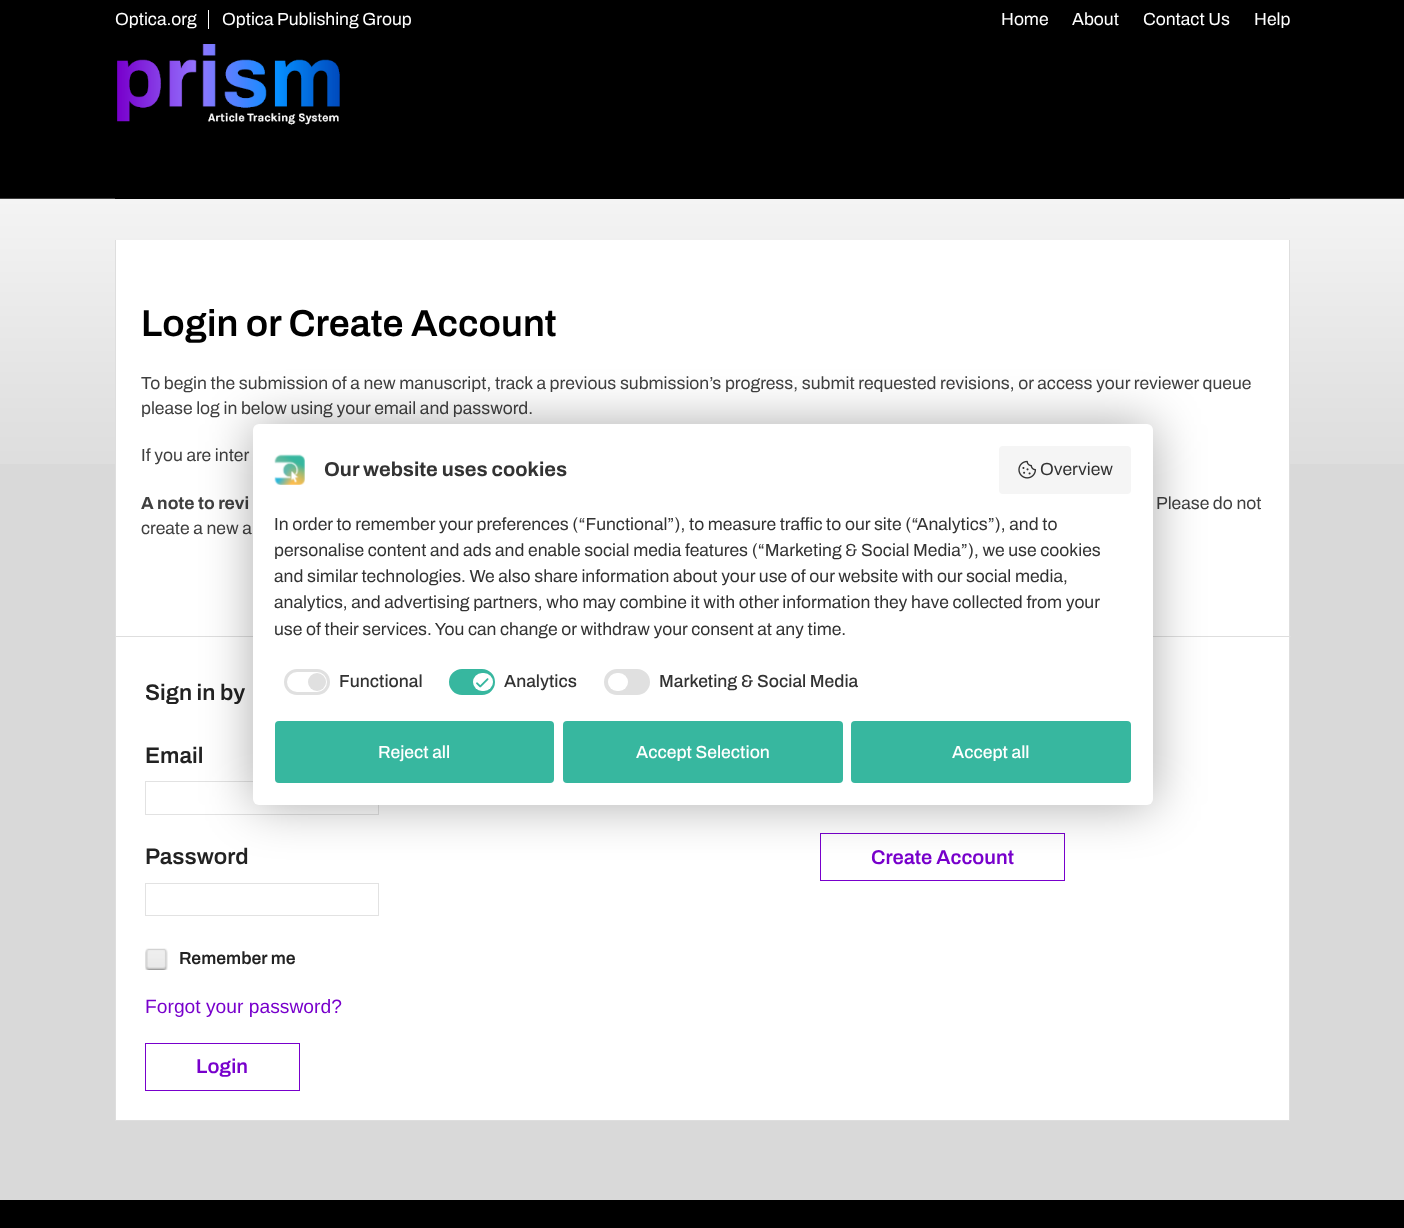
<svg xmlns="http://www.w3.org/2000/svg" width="1404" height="1228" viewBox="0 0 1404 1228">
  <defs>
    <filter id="blur1" x="-50%" y="-200%" width="200%" height="500%"><feGaussianBlur stdDeviation="25"/></filter>
  </defs>
  <rect width="100%" height="100%" fill="#d9d9d9"/>
  <image x="0" y="0" width="1404" height="464" href="img1.png"/>
  <rect x="115" y="198" width="1175" height="1" fill="#000000"/>
  <text x="115" y="25" font-family="Archivo" font-size="17.5" fill="#ffffff">Optica.org</text>
  <rect x="208" y="10" width="1" height="19" fill="#ffffff"/>
  <text x="222" y="25" font-family="Archivo" font-size="17.5" fill="#ffffff">Optica Publishing Group</text>
  <image x="117" y="44" width="223" height="81" href="img2.png"/>
  <text x="1001" y="25" font-family="Archivo" font-size="17.5" fill="#ffffff">Home</text>
  <text x="1072" y="25" font-family="Archivo" font-size="17.5" fill="#ffffff">About</text>
  <text x="1143" y="25" font-family="Archivo" font-size="17.5" fill="#ffffff">Contact Us</text>
  <text x="1254" y="25" font-family="Archivo" font-size="17.5" fill="#ffffff">Help</text>
  <rect x="116" y="240" width="1173" height="880" fill="#ffffff"/>
  <rect x="1289" y="240" width="1" height="881" fill="#dedede"/>
  <rect x="115" y="1120" width="1175" height="1" fill="#dedede"/>
  <rect x="115" y="240" width="1" height="881" fill="#dedede"/>
  <rect x="116" y="636" width="1175" height="1" fill="#dedede"/>
  <text x="141" y="336" font-family="Archivo" font-size="37.5" font-weight="600" fill="#000000">Login or Create Account</text>
  <text x="141" y="389" font-family="Archivo" font-size="17.5" fill="#404040">To begin the submission of a new manuscript, track a previous submission’s progress, submit requested revisions, or access your reviewer queue</text>
  <text x="141" y="414" font-family="Archivo" font-size="17.5" fill="#404040">please log in below using your email and password.</text>
  <text x="141" y="461" font-family="Archivo" font-size="17.5" fill="#404040">If you are inter</text>
  <text x="141" y="509" font-family="Archivo" font-size="17.5" font-weight="bold" fill="#404040">A note to revi</text>
  <text x="1156" y="509" font-family="Archivo" font-size="17.5" fill="#404040">Please do not</text>
  <text x="141" y="534" font-family="Archivo" font-size="17.5" fill="#404040">create a new a</text>
  <text x="145" y="700" font-family="Archivo" font-size="22.5" font-weight="600" fill="#222222">Sign in by</text>
  <text x="145" y="763" font-family="Archivo" font-size="22.5" font-weight="600" fill="#222222">Email</text>
  <rect x="145.5" y="781.5" width="233" height="33" fill="none" stroke="#e2e2e2"/>
  <text x="145" y="864" font-family="Archivo" font-size="22.5" font-weight="600" fill="#222222">Password</text>
  <rect x="145.5" y="883.5" width="233" height="32" fill="none" stroke="#e2e2e2"/>
  <image x="145" y="948" width="23" height="22" href="img3.png"/>
  <text x="179" y="964" font-family="Archivo" font-size="17.5" font-weight="600" fill="#222222">Remember me</text>
  <text x="145" y="1013" font-family="Liberation Sans" font-size="19.25" fill="#7800cc">Forgot your password?</text>
  <rect x="145.5" y="1043.5" width="154" height="47" fill="none" stroke="#7800cc"/>
  <text x="196" y="1073" font-family="Archivo" font-size="20" font-weight="600" fill="#7800cc">Login</text>
  <rect x="820.5" y="833.5" width="244" height="47" fill="none" stroke="#7800cc"/>
  <text x="871" y="864" font-family="Archivo" font-size="20" font-weight="600" fill="#7800cc">Create Account</text>
  <rect x="253" y="424" width="900" height="381" rx="6" fill="#000000" fill-opacity="0.33" filter="url(#blur1)"/>
  <rect x="253" y="424" width="900" height="381" rx="6" fill="#ffffff"/>
  <image x="274" y="454" width="31" height="31" href="img4.png"/>
  <text x="324" y="476" font-family="Archivo" font-size="20" font-weight="bold" fill="#333333">Our website uses cookies</text>
  <rect x="999" y="446" width="132" height="48" rx="4" fill="#f5f5f5"/>
  <image x="1018" y="460" width="19" height="19" href="img5.png"/>
  <text x="1040" y="475" font-family="Archivo" font-size="17.5" fill="#333333">Overview</text>
  <text x="274" y="530" font-family="Archivo" font-size="17.5" fill="#333333">In order to remember your preferences (“Functional”), to measure traffic to our site (“Analytics”), and to</text>
  <text x="274" y="556" font-family="Archivo" font-size="17.5" fill="#333333">personalise content and ads and enable social media features (“Marketing &amp; Social Media”), we use cookies</text>
  <text x="274" y="582" font-family="Archivo" font-size="17.5" fill="#333333">and similar technologies. We also share information about your use of our website with our social media,</text>
  <text x="274" y="608" font-family="Archivo" font-size="17.5" fill="#333333">analytics, and advertising partners, who may combine it with other information they have collected from your</text>
  <text x="274" y="635" font-family="Archivo" font-size="17.5" fill="#333333">use of their services. You can change or withdraw your consent at any time.</text>
  <rect x="285.5" y="670.5" width="43" height="23" rx="11.5" fill="none" stroke="#e0e0e0" stroke-width="3"/>
  <circle cx="317" cy="682" r="9" fill="#e0e0e0"/>
  <text x="339" y="687" font-family="Archivo" font-size="17.5" font-weight="500" fill="#333333">Functional</text>
  <rect x="450.5" y="670.5" width="43" height="23" rx="11.5" fill="#37b79f" stroke="#37b79f" stroke-width="3"/>
  <rect x="473" y="673" width="20" height="18" rx="9" fill="#ffffff"/>
  <image x="476" y="678" width="13" height="10" href="img6.png"/>
  <text x="504" y="687" font-family="Archivo" font-size="17.5" font-weight="500" fill="#333333">Analytics</text>
  <rect x="605.5" y="670.5" width="43" height="23" rx="11.5" fill="#e0e0e0" stroke="#e0e0e0" stroke-width="3"/>
  <rect x="608" y="673" width="20" height="18" rx="9" fill="#ffffff"/>
  <text x="659" y="687" font-family="Archivo" font-size="17.5" font-weight="500" fill="#333333">Marketing &amp; Social Media</text>
  <rect x="275" y="721" width="279" height="62" rx="4" fill="#37b79f"/>
  <text x="378" y="758" font-family="Archivo" font-size="17.5" font-weight="500" fill="#ffffff">Reject all</text>
  <rect x="563" y="721" width="280" height="62" rx="4" fill="#37b79f"/>
  <text x="636" y="758" font-family="Archivo" font-size="17.5" font-weight="500" fill="#ffffff">Accept Selection</text>
  <rect x="851" y="721" width="280" height="62" rx="4" fill="#37b79f"/>
  <text x="952" y="758" font-family="Archivo" font-size="17.5" font-weight="500" fill="#ffffff">Accept all</text>
  <rect x="0" y="1200" width="1404" height="28" fill="#000000"/>
</svg>
